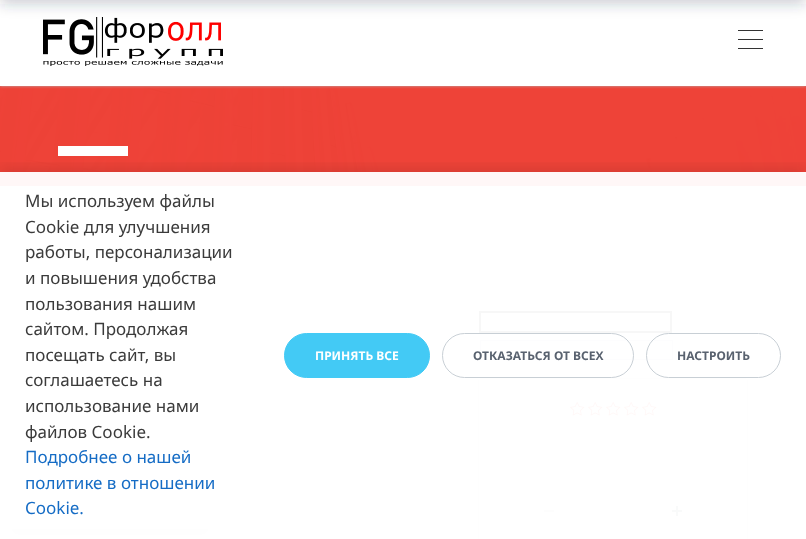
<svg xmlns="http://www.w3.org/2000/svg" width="806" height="539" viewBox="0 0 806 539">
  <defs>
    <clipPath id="clip1"><rect x="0" y="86" width="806" height="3"/></clipPath>
    <filter id="blur1" x="-50%" y="-200%" width="200%" height="500%"><feGaussianBlur stdDeviation="1.5"/></filter>
    <filter id="blur2" x="-50%" y="-200%" width="200%" height="500%"><feGaussianBlur stdDeviation="7"/></filter>
    <filter id="blur3" x="-50%" y="-200%" width="200%" height="500%"><feGaussianBlur stdDeviation="5"/></filter>
    <clipPath id="clip2"><rect x="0" y="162" width="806" height="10"/></clipPath>
  </defs>
  <rect width="100%" height="100%" fill="#ffffff"/>
  <image x="0" y="86" width="806" height="100" href="img2.png"/>
  <g clip-path="url(#clip1)">
    <rect x="0" y="-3" width="806" height="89" fill="#b5b5b5" filter="url(#blur1)"/>
  </g>
  <image x="43" y="17" width="180" height="49" href="img1.png"/>
  <rect x="738" y="30" width="25" height="1" fill="#333333"/>
  <rect x="738" y="39" width="25" height="1" fill="#333333"/>
  <rect x="738" y="48" width="25" height="1" fill="#333333"/>
  <rect x="58" y="146" width="70" height="10" fill="#ffffff"/>
  <rect x="0" y="-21" width="806" height="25" fill="#20364a" fill-opacity="0.23" filter="url(#blur2)"/>
  <rect x="480" y="312" width="191" height="20" fill="none" stroke="#333333" stroke-width="2"/>
  <rect x="480.5" y="340.5" width="192" height="19" fill="none" stroke="#c0cfda"/>
  <rect x="478.5" y="378.5" width="269" height="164" rx="2.5" fill="none" stroke="#e4e4e4"/>
  <image x="570" y="402" width="15" height="14" href="img3.png"/>
  <image x="588" y="402" width="15" height="14" href="img3.png"/>
  <image x="606" y="402" width="15" height="14" href="img3.png"/>
  <image x="624" y="402" width="15" height="14" href="img3.png"/>
  <image x="642" y="402" width="15" height="14" href="img3.png"/>
  <rect x="538" y="500" width="22" height="22" rx="2" fill="#f2f2f2"/>
  <rect x="544" y="510" width="10" height="2" fill="#c2c5c9"/>
  <rect x="666" y="500" width="22" height="22" rx="2" fill="#f2f2f2"/>
  <image x="672" y="506" width="10" height="10" href="img4.png"/>
  <rect x="10" y="476" width="200" height="60" rx="1" fill="#000000" fill-opacity="0.15" filter="url(#blur3)"/>
  <rect x="10.5" y="469.5" width="199" height="59" rx="0.5" fill="#ffffff" stroke="#f0f0f0"/>
  <g clip-path="url(#clip2)">
    <rect x="0" y="168" width="806" height="367" fill="#000000" fill-opacity="0.1" filter="url(#blur2)"/>
  </g>
  <rect x="0" y="172" width="806" height="367" fill="#ffffff" fill-opacity="0.96"/>
  <text x="25" y="207" font-family="Noto Sans" font-size="17" fill="#3b3b3b">Мы используем файлы</text>
  <text x="25" y="233" font-family="Noto Sans" font-size="17" fill="#3b3b3b">Cookie для улучшения</text>
  <text x="25" y="258" font-family="Noto Sans" font-size="17" fill="#3b3b3b">работы, персонализации</text>
  <text x="25" y="284" font-family="Noto Sans" font-size="17" fill="#3b3b3b">и повышения удобства</text>
  <text x="25" y="310" font-family="Noto Sans" font-size="17" fill="#3b3b3b">пользования нашим</text>
  <text x="25" y="335" font-family="Noto Sans" font-size="17" fill="#3b3b3b">сайтом. Продолжая</text>
  <text x="25" y="361" font-family="Noto Sans" font-size="17" fill="#3b3b3b">посещать сайт, вы</text>
  <text x="25" y="386" font-family="Noto Sans" font-size="17" fill="#3b3b3b">соглашаетесь на</text>
  <text x="25" y="412" font-family="Noto Sans" font-size="17" fill="#3b3b3b">использование нами</text>
  <text x="25" y="438" font-family="Noto Sans" font-size="17" fill="#3b3b3b">файлов Cookie.</text>
  <text x="25" y="463" font-family="Noto Sans" font-size="17" fill="#156cc5">Подробнее о нашей</text>
  <text x="25" y="489" font-family="Noto Sans" font-size="17" fill="#156cc5">политике в отношении</text>
  <text x="25" y="514" font-family="Noto Sans" font-size="17" fill="#156cc5">Cookie.</text>
  <rect x="284.5" y="333.5" width="145" height="44" rx="22" fill="#43caf5" stroke="#43caf5"/>
  <text x="315" y="360" font-family="Noto Sans" font-size="12" font-weight="bold" fill="#ffffff">ПРИНЯТЬ ВСЕ</text>
  <rect x="442.5" y="333.5" width="191" height="44" rx="22" fill="none" stroke="#c6cdd3" stroke-opacity="0.96"/>
  <text x="473" y="360" font-family="Noto Sans" font-size="12" font-weight="bold" fill="#59626f">ОТКАЗАТЬСЯ ОТ ВСЕХ</text>
  <rect x="646.5" y="333.5" width="134" height="44" rx="22" fill="none" stroke="#c6cdd3" stroke-opacity="0.96"/>
  <text x="677" y="360" font-family="Noto Sans" font-size="12" font-weight="bold" fill="#59626f">НАСТРОИТЬ</text>
</svg>
